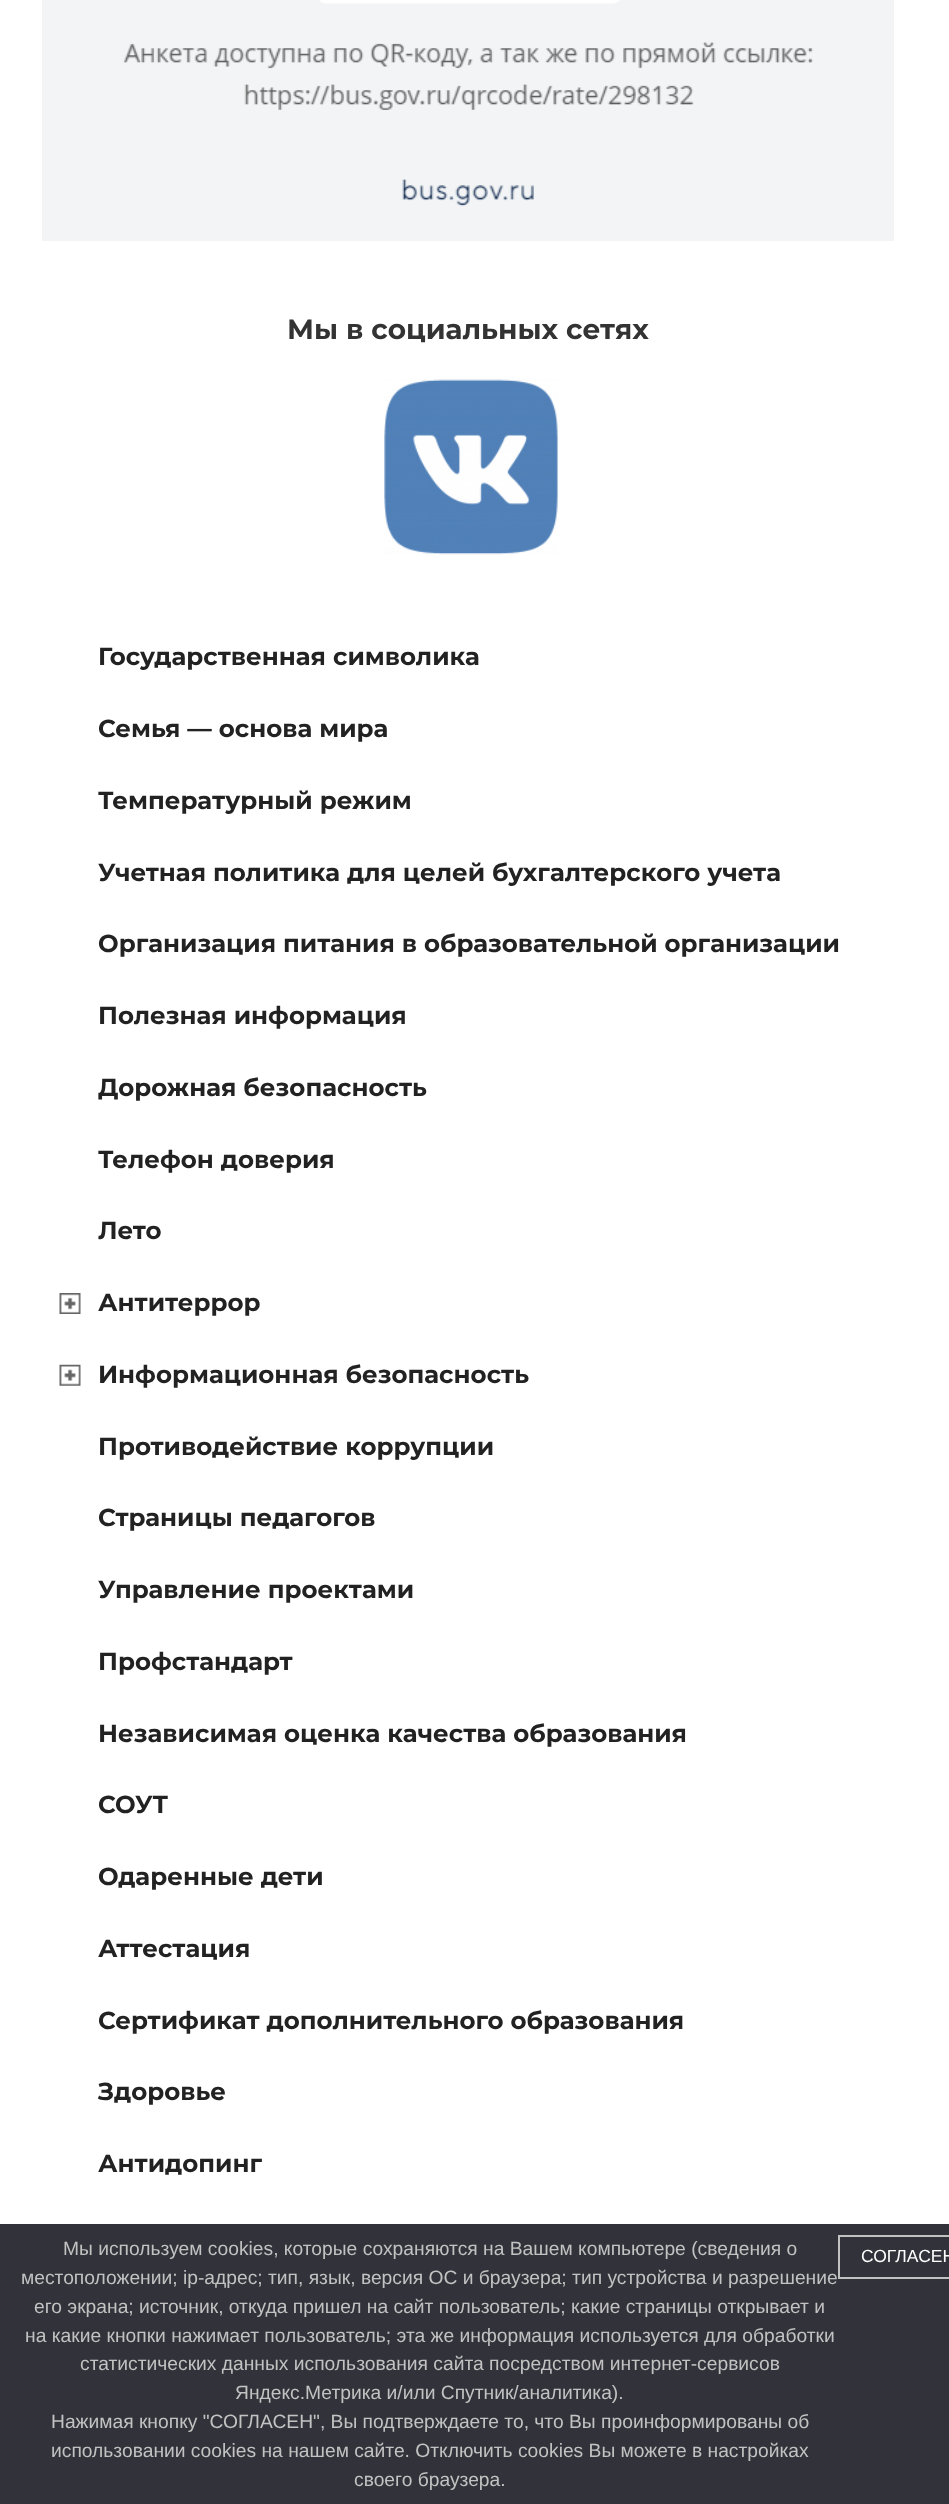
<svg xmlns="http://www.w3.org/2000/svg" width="949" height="2504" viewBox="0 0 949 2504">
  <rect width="100%" height="100%" fill="#ffffff"/>
  <image x="42" y="0" width="852" height="241" href="img1.png"/>
  <text x="287" y="339" font-family="Montserrat" font-size="28" font-weight="bold" fill="#333333">Мы в социальных сетях</text>
  <image x="384" y="379" width="174" height="176" href="img2.png"/>
  <text x="98" y="665" font-family="Montserrat" font-size="24.5" font-weight="bold" fill="#222222">Государственная символика</text>
  <text x="98" y="737" font-family="Montserrat" font-size="24.5" font-weight="bold" fill="#222222">Семья — основа мира</text>
  <text x="98" y="809" font-family="Montserrat" font-size="24.5" font-weight="bold" fill="#222222">Температурный режим</text>
  <text x="98" y="881" font-family="Montserrat" font-size="24.5" font-weight="bold" fill="#222222">Учетная политика для целей бухгалтерского учета</text>
  <text x="98" y="952" font-family="Montserrat" font-size="24.5" font-weight="bold" fill="#222222">Организация питания в образовательной организации</text>
  <text x="98" y="1024" font-family="Montserrat" font-size="24.5" font-weight="bold" fill="#222222">Полезная информация</text>
  <text x="98" y="1096" font-family="Montserrat" font-size="24.5" font-weight="bold" fill="#222222">Дорожная безопасность</text>
  <text x="98" y="1168" font-family="Montserrat" font-size="24.5" font-weight="bold" fill="#222222">Телефон доверия</text>
  <text x="98" y="1239" font-family="Montserrat" font-size="24.5" font-weight="bold" fill="#222222">Лето</text>
  <image x="59" y="1293" width="22" height="21" href="img3.png"/>
  <text x="98" y="1311" font-family="Montserrat" font-size="24.5" font-weight="bold" fill="#222222">Антитеррор</text>
  <image x="59" y="1364" width="22" height="22" href="img4.png"/>
  <text x="98" y="1383" font-family="Montserrat" font-size="24.5" font-weight="bold" fill="#222222">Информационная безопасность</text>
  <text x="98" y="1455" font-family="Montserrat" font-size="24.5" font-weight="bold" fill="#222222">Противодействие коррупции</text>
  <text x="98" y="1526" font-family="Montserrat" font-size="24.5" font-weight="bold" fill="#222222">Страницы педагогов</text>
  <text x="98" y="1598" font-family="Montserrat" font-size="24.5" font-weight="bold" fill="#222222">Управление проектами</text>
  <text x="98" y="1670" font-family="Montserrat" font-size="24.5" font-weight="bold" fill="#222222">Профстандарт</text>
  <text x="98" y="1742" font-family="Montserrat" font-size="24.5" font-weight="bold" fill="#222222">Независимая оценка качества образования</text>
  <text x="98" y="1813" font-family="Montserrat" font-size="24.5" font-weight="bold" fill="#222222">СОУТ</text>
  <text x="98" y="1885" font-family="Montserrat" font-size="24.5" font-weight="bold" fill="#222222">Одаренные дети</text>
  <text x="98" y="1957" font-family="Montserrat" font-size="24.5" font-weight="bold" fill="#222222">Аттестация</text>
  <text x="98" y="2029" font-family="Montserrat" font-size="24.5" font-weight="bold" fill="#222222">Сертификат дополнительного образования</text>
  <text x="98" y="2100" font-family="Montserrat" font-size="24.5" font-weight="bold" fill="#222222">Здоровье</text>
  <text x="98" y="2172" font-family="Montserrat" font-size="24.5" font-weight="bold" fill="#222222">Антидопинг</text>
  <rect x="0" y="2224" width="949" height="280" fill="#32323a"/>
  <text x="63" y="2255" font-family="Liberation Sans" font-size="19.25" fill="#c2c2c2">Мы используем cookies, которые сохраняются на Вашем компьютере (сведения о</text>
  <text x="21" y="2284" font-family="Liberation Sans" font-size="19.25" fill="#c2c2c2">местоположении; ip-адрес; тип, язык, версия ОС и браузера; тип устройства и разрешение</text>
  <text x="34" y="2313" font-family="Liberation Sans" font-size="19.25" fill="#c2c2c2">его экрана; источник, откуда пришел на сайт пользователь; какие страницы открывает и</text>
  <text x="25" y="2342" font-family="Liberation Sans" font-size="19.25" fill="#c2c2c2">на какие кнопки нажимает пользователь; эта же информация используется для обработки</text>
  <text x="80" y="2370" font-family="Liberation Sans" font-size="19.25" fill="#c2c2c2">статистических данных использования сайта посредством интернет-сервисов</text>
  <text x="235" y="2399" font-family="Liberation Sans" font-size="19.25" fill="#c2c2c2">Яндекс.Метрика и/или Спутник/аналитика).</text>
  <text x="51" y="2428" font-family="Liberation Sans" font-size="19.25" fill="#c2c2c2">Нажимая кнопку "СОГЛАСЕН", Вы подтверждаете то, что Вы проинформированы об</text>
  <text x="51" y="2457" font-family="Liberation Sans" font-size="19.25" fill="#c2c2c2">использовании cookies на нашем сайте. Отключить cookies Вы можете в настройках</text>
  <text x="354" y="2486" font-family="Liberation Sans" font-size="19.25" fill="#c2c2c2">своего браузера.</text>
  <rect x="839" y="2236" width="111" height="42" fill="none" stroke="#c2c2c2" stroke-width="2"/>
  <text x="861" y="2262" font-family="Liberation Sans" font-size="17.5" fill="#ffffff">СОГЛАСЕН</text>
</svg>
